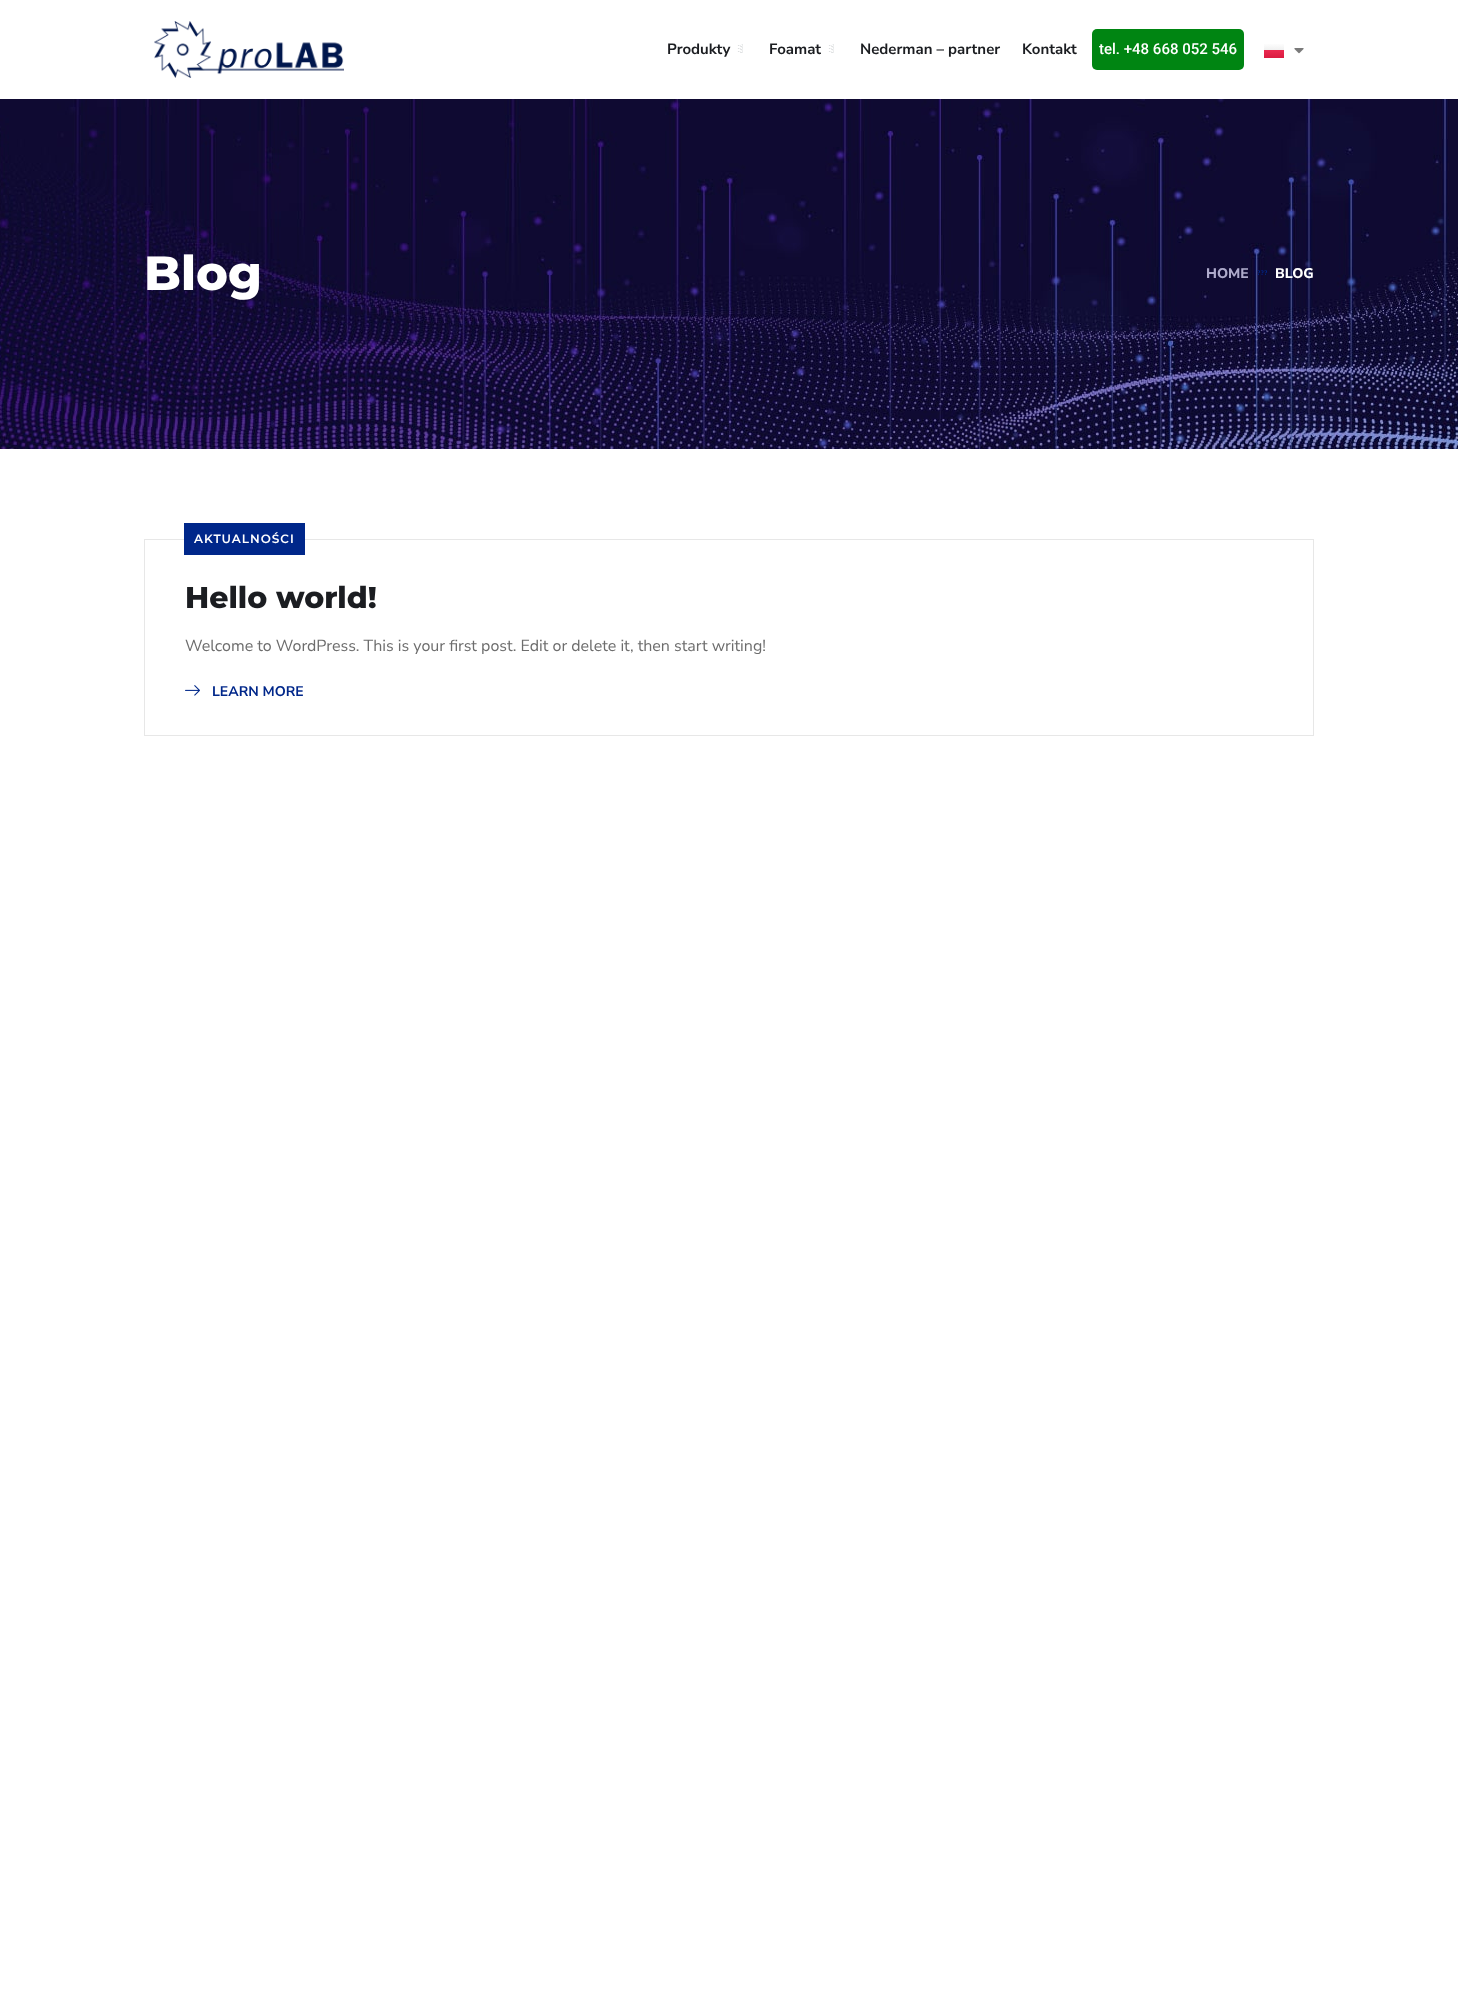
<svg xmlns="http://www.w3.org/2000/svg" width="1458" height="2001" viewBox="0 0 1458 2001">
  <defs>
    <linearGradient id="g1" gradientUnits="userSpaceOnUse" x1="1275" y1="43" x2="1275" y2="50"><stop offset="0" stop-color="#ffffff"/><stop offset="1" stop-color="#f0f0f0"/></linearGradient>
    <linearGradient id="g2" gradientUnits="userSpaceOnUse" x1="1275" y1="50" x2="1275" y2="58"><stop offset="0" stop-color="#eb2a50"/><stop offset="1" stop-color="#da1b40"/></linearGradient>
  </defs>
  <rect width="100%" height="100%" fill="#ffffff"/>
  <image x="154" y="21" width="190" height="57" href="img1.png"/>
  <text x="667" y="54" font-family="Nunito Sans" font-size="15" font-weight="bold" fill="#1b1d21">Produkty</text>
  <text x="738" y="44" transform="rotate(90 738 44)" font-family="Liberation Serif" font-size="7" fill="#c3c7c9">???</text>
  <text x="769" y="54" font-family="Nunito Sans" font-size="15" font-weight="bold" fill="#1b1d21">Foamat</text>
  <text x="829" y="44" transform="rotate(90 829 44)" font-family="Liberation Serif" font-size="7" fill="#c3c7c9">???</text>
  <text x="860" y="54" font-family="Nunito Sans" font-size="15" font-weight="bold" fill="#1b1d21">Nederman – partner</text>
  <text x="1022" y="54" font-family="Nunito Sans" font-size="15" font-weight="bold" fill="#1b1d21">Kontakt</text>
  <rect x="1092" y="29" width="152" height="41" rx="5" fill="#008512"/>
  <text x="1099" y="54" font-family="Roboto" font-size="15" font-weight="500" fill="#ffffff">tel. +48 668 052 546</text>
  <rect x="1264" y="44" width="20" height="6" fill="url(#g1)"/>
  <rect x="1264" y="50" width="20" height="8" fill="url(#g2)"/>
  <image x="1294" y="48" width="10" height="6" href="img2.png"/>
  <image x="0" y="99" width="1458" height="350" href="img3.png"/>
  <text x="144" y="290" font-family="Montserrat" font-size="48" font-weight="800" fill="#ffffff">Blog</text>
  <text x="1206" y="278" font-family="Nunito Sans" font-size="14" font-weight="800" fill="#aeaacb">HOME</text>
  <text x="1257" y="275" font-family="Liberation Serif" font-size="7" font-weight="bold" fill="#00278a">???</text>
  <text x="1275" y="278" font-family="Nunito Sans" font-size="14" font-weight="800" fill="#ffffff">BLOG</text>
  <rect x="144.5" y="539.5" width="1169" height="196" fill="none" stroke="#e7e7e7"/>
  <rect x="184" y="523" width="121" height="32" fill="#00278a"/>
  <text x="194" y="543" font-family="Montserrat" font-size="12" font-weight="600" letter-spacing="1" fill="#ffffff">AKTUALNOŚCI</text>
  <text x="185" y="608" font-family="Montserrat" font-size="30" font-weight="800" fill="#1b1d21">Hello world!</text>
  <text x="185" y="651" font-family="Nunito Sans" font-size="16" fill="#6d6d6d">Welcome to WordPress. This is your first post. Edit or delete it, then start writing!</text>
  <image x="185" y="685" width="15" height="11" href="img4.png"/>
  <text x="212" y="696" font-family="Nunito Sans" font-size="14" font-weight="bold" fill="#00278a">LEARN MORE</text>
</svg>
